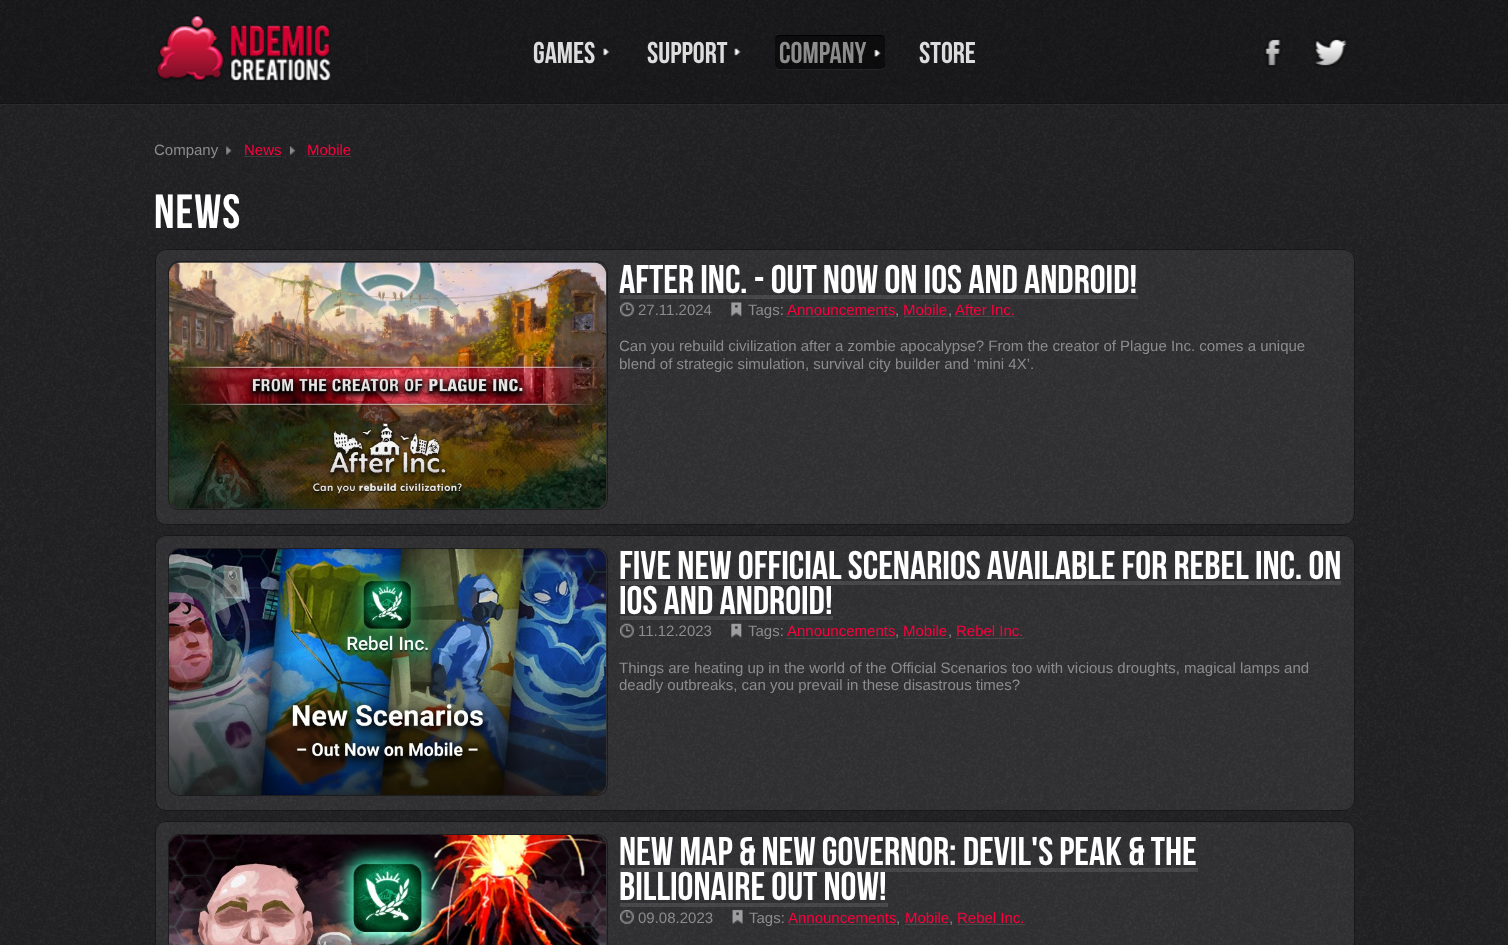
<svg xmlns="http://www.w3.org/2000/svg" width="1508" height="945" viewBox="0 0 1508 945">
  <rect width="100%" height="100%" fill="#ffffff"/>
  <image x="0" y="103" width="1508" height="842" href="img1.png"/>
  <path d="M0 104V105H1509V1V104Z" fill="#ffffff" fill-opacity="0.04"/>
  <image x="0" y="0" width="1508" height="104" href="img2.png"/>
  <rect x="0" y="103" width="1508" height="1" fill="#000000" fill-opacity="0.26"/>
  <image x="156" y="15" width="212" height="67" href="img3.png"/>
  <image x="603" y="48" width="7" height="8" href="img4.png"/>
  <text x="533" y="63" font-family="Bebas Neue" font-size="30" fill="#dddddd">Games</text>
  <image x="734" y="48" width="7" height="8" href="img5.png"/>
  <text x="647" y="63" font-family="Bebas Neue" font-size="30" fill="#dddddd">Support</text>
  <rect x="775" y="35" width="110" height="35" rx="5" fill="#000000" fill-opacity="0.5"/>
  <image x="874" y="49" width="7" height="8" href="img6.png"/>
  <path d="M780 35C777 35 775 37 775 40C775 38 777 36 780 36H880C883 36 885 38 885 40C885 37 883 35 880 35Z" fill="#000000"/>
  <path d="M880 70C883 70 885 68 885 65C885 67 883 69 880 69H780C777 69 775 67 775 65C775 68 777 70 780 70Z" fill="#ffffff" fill-opacity="0.1"/>
  <text x="779" y="63" font-family="Bebas Neue" font-size="30" fill="#8c8c8c">Company</text>
  <text x="919" y="63" font-family="Bebas Neue" font-size="30" fill="#dddddd">Store</text>
  <image x="1264" y="38" width="18" height="29" href="img7.png"/>
  <image x="1314" y="37" width="34" height="30" href="img8.png"/>
  <text x="154" y="155" font-family="Liberation Sans" font-size="15" fill="#8c8c8c">Company</text>
  <image x="226" y="146" width="6" height="9" href="img9.png"/>
  <text x="244" y="155" font-family="Liberation Sans" font-size="15" fill="#fb003c">News</text>
  <rect x="244" y="156" width="37" height="1" fill="#ffffff" fill-opacity="0.11"/>
  <image x="290" y="146" width="5" height="9" href="img10.png"/>
  <text x="307" y="155" font-family="Liberation Sans" font-size="15" fill="#fb003c">Mobile</text>
  <rect x="308" y="156" width="43" height="1" fill="#ffffff" fill-opacity="0.11"/>
  <text x="154" y="228" font-family="Bebas Neue" font-size="48" letter-spacing="1" fill="#ffffff">NEWS</text>
  <rect x="155" y="249" width="1200" height="276" rx="11" fill="#ffffff" fill-opacity="0.07"/>
  <rect x="155.5" y="249.5" width="1199" height="275" rx="10.5" fill="none" stroke="#000000" stroke-opacity="0.5"/>
  <rect x="168.5" y="261.5" width="439" height="248" rx="10.5" fill="none" stroke="#000000" stroke-opacity="0.4"/>
  <image x="168" y="262" width="439" height="247" href="img11.png"/>
  <text x="619" y="293" font-family="Bebas Neue" font-size="40" fill="#ffffff">After Inc. - Out now on iOS and Android!</text>
  <rect x="620" y="295" width="518" height="4" fill="#ffffff" fill-opacity="0.11"/>
  <image x="620" y="302" width="14" height="15" href="img12.png"/>
  <text x="638" y="315" font-family="Liberation Sans" font-size="15" fill="#8c8c8c">27.11.2024</text>
  <image x="731" y="302" width="11" height="15" href="img13.png"/>
  <text x="748" y="315" font-family="Liberation Sans" font-size="15" fill="#8c8c8c">Tags:</text>
  <text x="787" y="315" font-family="Liberation Sans" font-size="15" fill="#fb003c">Announcements</text>
  <text x="895" y="315" font-family="Liberation Sans" font-size="15" fill="#8c8c8c">,</text>
  <rect x="786" y="316" width="109" height="1" fill="#ffffff" fill-opacity="0.11"/>
  <text x="903" y="315" font-family="Liberation Sans" font-size="15" fill="#fb003c">Mobile</text>
  <text x="948" y="315" font-family="Liberation Sans" font-size="15" fill="#8c8c8c">,</text>
  <rect x="904" y="316" width="44" height="1" fill="#ffffff" fill-opacity="0.11"/>
  <rect x="955" y="316" width="60" height="1" fill="#ffffff" fill-opacity="0.11"/>
  <text x="955" y="315" font-family="Liberation Sans" font-size="15" fill="#fb003c">After Inc.</text>
  <text x="619" y="351" font-family="Liberation Sans" font-size="15" fill="#8c8c8c">Can you rebuild civilization after a zombie apocalypse? From the creator of Plague Inc. comes a unique</text>
  <text x="619" y="369" font-family="Liberation Sans" font-size="15" fill="#8c8c8c">blend of strategic simulation, survival city builder and ‘mini 4X’.</text>
  <rect x="155" y="535" width="1200" height="276" rx="11" fill="#ffffff" fill-opacity="0.07"/>
  <rect x="155.5" y="535.5" width="1199" height="275" rx="10.5" fill="none" stroke="#000000" stroke-opacity="0.5"/>
  <rect x="168.5" y="548.5" width="439" height="247" rx="10.5" fill="none" stroke="#000000" stroke-opacity="0.4"/>
  <image x="168" y="548" width="439" height="247" href="img14.png"/>
  <text x="619" y="579" font-family="Bebas Neue" font-size="40" fill="#ffffff">Five new Official Scenarios available for Rebel Inc. on</text>
  <text x="619" y="614" font-family="Bebas Neue" font-size="40" fill="#ffffff">iOS and Android!</text>
  <rect x="620" y="581" width="721" height="4" fill="#ffffff" fill-opacity="0.11"/>
  <rect x="620" y="616" width="213" height="4" fill="#ffffff" fill-opacity="0.11"/>
  <image x="620" y="623" width="14" height="15" href="img15.png"/>
  <text x="638" y="636" font-family="Liberation Sans" font-size="15" fill="#8c8c8c">11.12.2023</text>
  <image x="731" y="623" width="11" height="15" href="img16.png"/>
  <text x="748" y="636" font-family="Liberation Sans" font-size="15" fill="#8c8c8c">Tags:</text>
  <text x="787" y="636" font-family="Liberation Sans" font-size="15" fill="#fb003c">Announcements</text>
  <text x="895" y="636" font-family="Liberation Sans" font-size="15" fill="#8c8c8c">,</text>
  <rect x="786" y="638" width="109" height="1" fill="#ffffff" fill-opacity="0.11"/>
  <text x="903" y="636" font-family="Liberation Sans" font-size="15" fill="#fb003c">Mobile</text>
  <text x="948" y="636" font-family="Liberation Sans" font-size="15" fill="#8c8c8c">,</text>
  <rect x="904" y="638" width="44" height="1" fill="#ffffff" fill-opacity="0.11"/>
  <rect x="956" y="638" width="68" height="1" fill="#ffffff" fill-opacity="0.11"/>
  <text x="956" y="636" font-family="Liberation Sans" font-size="15" fill="#fb003c">Rebel Inc.</text>
  <text x="619" y="673" font-family="Liberation Sans" font-size="15" fill="#8c8c8c">Things are heating up in the world of the Official Scenarios too with vicious droughts, magical lamps and</text>
  <text x="619" y="690" font-family="Liberation Sans" font-size="15" fill="#8c8c8c">deadly outbreaks, can you prevail in these disastrous times?</text>
  <rect x="155" y="821" width="1200" height="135" rx="11" fill="#ffffff" fill-opacity="0.07"/>
  <rect x="155.5" y="821.5" width="1199" height="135" rx="10.5" fill="none" stroke="#000000" stroke-opacity="0.5"/>
  <rect x="168.5" y="834.5" width="439" height="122" rx="10.5" fill="none" stroke="#000000" stroke-opacity="0.4"/>
  <image x="168" y="835" width="438" height="110" href="img17.png"/>
  <text x="619" y="865" font-family="Bebas Neue" font-size="40" fill="#ffffff">New Map &amp; New Governor: Devil's Peak &amp; The</text>
  <rect x="620" y="868" width="578" height="4" fill="#ffffff" fill-opacity="0.11"/>
  <text x="619" y="900" font-family="Bebas Neue" font-size="40" fill="#ffffff">Billionaire out now!</text>
  <rect x="620" y="903" width="268" height="4" fill="#ffffff" fill-opacity="0.11"/>
  <image x="620" y="910" width="14" height="14" href="img18.png"/>
  <text x="638" y="923" font-family="Liberation Sans" font-size="15" fill="#8c8c8c">09.08.2023</text>
  <image x="732" y="909" width="11" height="15" href="img19.png"/>
  <text x="749" y="923" font-family="Liberation Sans" font-size="15" fill="#8c8c8c">Tags:</text>
  <text x="788" y="923" font-family="Liberation Sans" font-size="15" fill="#fb003c">Announcements</text>
  <text x="896" y="923" font-family="Liberation Sans" font-size="15" fill="#8c8c8c">,</text>
  <rect x="788" y="924" width="108" height="1" fill="#ffffff" fill-opacity="0.11"/>
  <text x="905" y="923" font-family="Liberation Sans" font-size="15" fill="#fb003c">Mobile</text>
  <text x="949" y="923" font-family="Liberation Sans" font-size="15" fill="#8c8c8c">,</text>
  <rect x="905" y="924" width="44" height="1" fill="#ffffff" fill-opacity="0.11"/>
  <rect x="958" y="924" width="67" height="1" fill="#ffffff" fill-opacity="0.11"/>
  <text x="957" y="923" font-family="Liberation Sans" font-size="15" fill="#fb003c">Rebel Inc.</text>
</svg>
